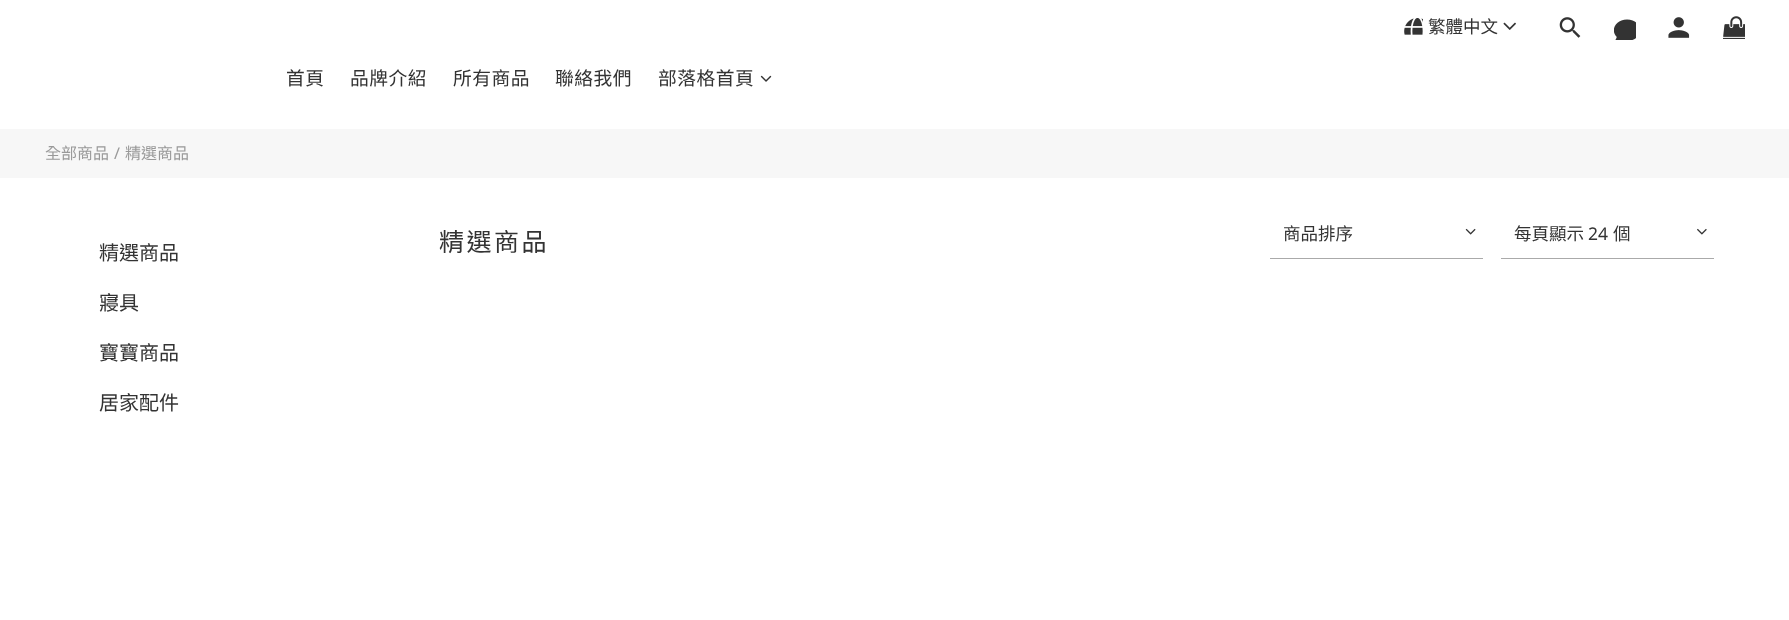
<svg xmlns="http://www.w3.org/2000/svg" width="1789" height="620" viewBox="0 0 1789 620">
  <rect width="100%" height="100%" fill="#ffffff"/>
  <image x="1404" y="18" width="19" height="17" href="img1.png"/>
  <text x="1428" y="33" font-family="Noto Sans TC" font-size="17.5" fill="#333333">繁體中文</text>
  <image x="1503" y="22" width="13" height="8" href="img2.png"/>
  <image x="1559" y="17" width="22" height="21" href="img3.png"/>
  <image x="1614" y="19" width="22" height="21" href="img4.png"/>
  <image x="1668" y="17" width="22" height="21" href="img5.png"/>
  <image x="1723" y="16" width="22" height="23" href="img6.png"/>
  <text x="286" y="85" font-family="Noto Sans TC" font-size="18.75" letter-spacing="0.5" fill="#333333">首頁</text>
  <text x="350" y="85" font-family="Noto Sans TC" font-size="18.75" letter-spacing="0.5" fill="#333333">品牌介紹</text>
  <text x="453" y="85" font-family="Noto Sans TC" font-size="18.75" letter-spacing="0.5" fill="#333333">所有商品</text>
  <text x="555" y="85" font-family="Noto Sans TC" font-size="18.75" letter-spacing="0.5" fill="#333333">聯絡我們</text>
  <text x="658" y="85" font-family="Noto Sans TC" font-size="18.75" letter-spacing="0.5" fill="#333333">部落格首頁</text>
  <image x="760" y="75" width="12" height="7" href="img7.png"/>
  <rect x="0" y="129" width="1789" height="49" fill="#f7f7f7"/>
  <text x="45" y="159" font-family="Noto Sans TC" font-size="16" fill="#999999">全部商品</text>
  <text x="114" y="159" font-family="Noto Sans" font-size="16" fill="#999999">/</text>
  <text x="125" y="159" font-family="Noto Sans TC" font-size="16" fill="#999999">精選商品</text>
  <text x="439" y="251" font-family="Noto Sans TC" font-size="25" letter-spacing="2.5" fill="#333333">精選商品</text>
  <text x="1283" y="240" font-family="Noto Sans TC" font-size="17.5" fill="#333333">商品排序</text>
  <rect x="1270" y="258" width="213" height="1" fill="#aaaaaa"/>
  <image x="1465" y="228" width="11" height="7" href="img8.png"/>
  <text x="1514" y="240" font-family="Noto Sans TC" font-size="17.5" fill="#333333">每頁顯示</text>
  <text x="1588" y="240" font-family="Noto Sans" font-size="17.5" fill="#333333">24</text>
  <text x="1613" y="240" font-family="Noto Sans TC" font-size="17.5" fill="#333333">個</text>
  <rect x="1501" y="258" width="213" height="1" fill="#aaaaaa"/>
  <image x="1697" y="228" width="10" height="7" href="img9.png"/>
  <text x="99" y="260" font-family="Noto Sans TC" font-size="20" fill="#333333">精選商品</text>
  <text x="99" y="310" font-family="Noto Sans TC" font-size="20" fill="#333333">寢具</text>
  <text x="99" y="360" font-family="Noto Sans TC" font-size="20" fill="#333333">寶寶商品</text>
  <text x="99" y="410" font-family="Noto Sans TC" font-size="20" fill="#333333">居家配件</text>
</svg>
